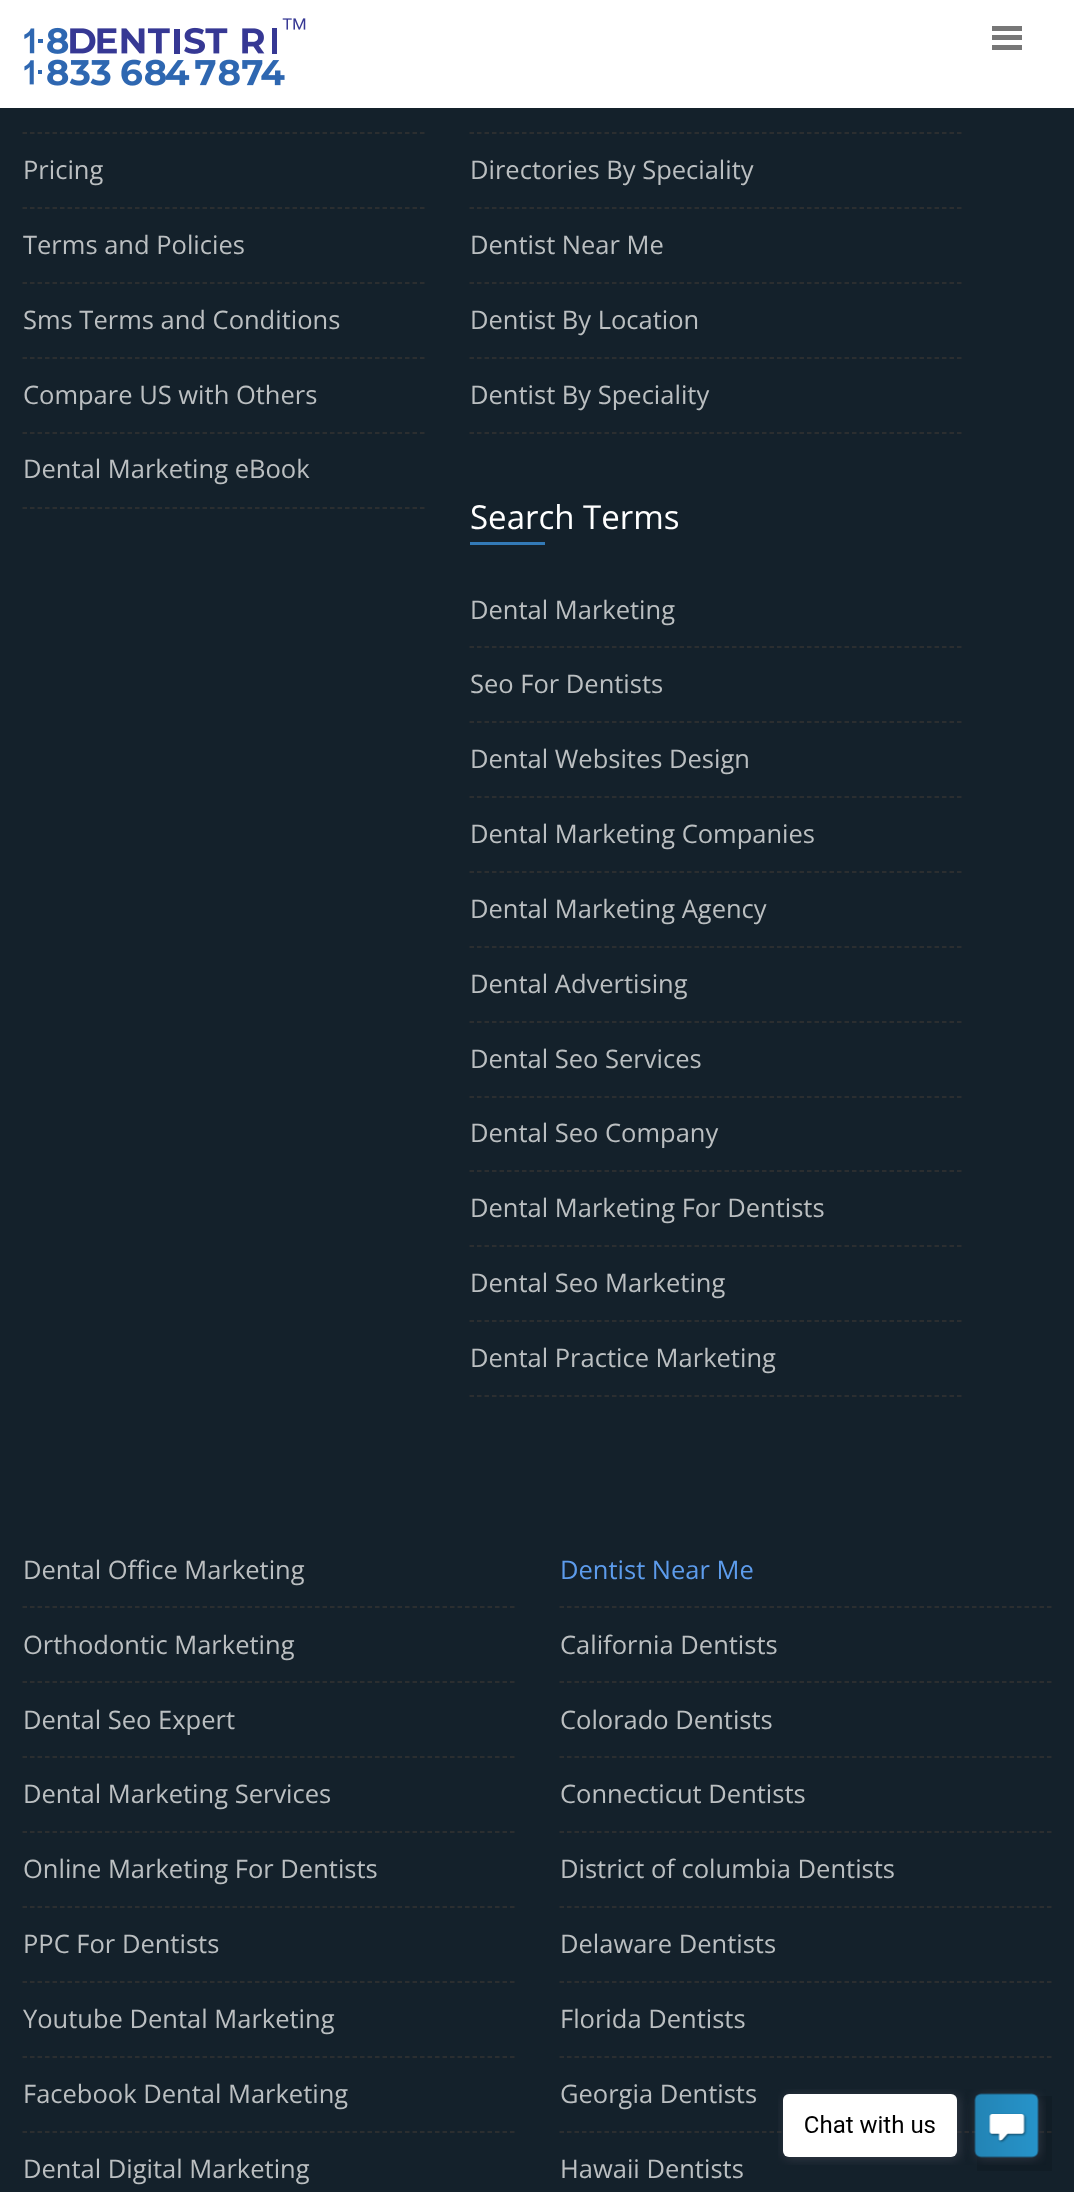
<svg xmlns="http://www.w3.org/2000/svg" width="1074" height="2192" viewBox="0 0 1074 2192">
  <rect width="100%" height="100%" fill="#14212b"/>
  <rect x="0" y="0" width="1074" height="108" fill="#ffffff"/>
  <image x="24" y="18" width="282" height="68" href="img1.png"/>
  <rect x="992" y="26" width="30" height="5" fill="#777777"/>
  <rect x="992" y="35" width="30" height="5" fill="#777777"/>
  <rect x="992" y="45" width="30" height="5" fill="#777777"/>
  <path d="M22.5 133H424.5" fill="none" stroke="#333333" stroke-width="1.5" stroke-dasharray="4.5 3"/>
  <path d="M22.5 208H424.5" fill="none" stroke="#333333" stroke-width="1.5" stroke-dasharray="4.5 3"/>
  <text x="23" y="179" font-family="Open Sans" font-size="25.5" fill="#bbbfc1">Pricing</text>
  <path d="M22.5 283H424.5" fill="none" stroke="#333333" stroke-width="1.5" stroke-dasharray="4.5 3"/>
  <text x="23" y="254" font-family="Open Sans" font-size="25.5" fill="#bbbfc1">Terms and Policies</text>
  <path d="M22.5 358H424.5" fill="none" stroke="#333333" stroke-width="1.5" stroke-dasharray="4.5 3"/>
  <text x="23" y="329" font-family="Open Sans" font-size="25.5" fill="#bbbfc1">Sms Terms and Conditions</text>
  <path d="M22.5 433H424.5" fill="none" stroke="#333333" stroke-width="1.5" stroke-dasharray="4.5 3"/>
  <text x="23" y="404" font-family="Open Sans" font-size="25.5" fill="#bbbfc1">Compare US with Others</text>
  <path d="M22.5 508H424.5" fill="none" stroke="#333333" stroke-width="1.5" stroke-dasharray="4.5 3"/>
  <text x="23" y="478" font-family="Open Sans" font-size="25.5" fill="#bbbfc1">Dental Marketing eBook</text>
  <path d="M469.5 133H961.5" fill="none" stroke="#333333" stroke-width="1.5" stroke-dasharray="4.5 3"/>
  <path d="M469.5 208H961.5" fill="none" stroke="#333333" stroke-width="1.5" stroke-dasharray="4.5 3"/>
  <text x="470" y="179" font-family="Open Sans" font-size="25.5" fill="#bbbfc1">Directories By Speciality</text>
  <path d="M469.5 283H961.5" fill="none" stroke="#333333" stroke-width="1.5" stroke-dasharray="4.5 3"/>
  <text x="470" y="254" font-family="Open Sans" font-size="25.5" fill="#bbbfc1">Dentist Near Me</text>
  <path d="M469.5 358H961.5" fill="none" stroke="#333333" stroke-width="1.5" stroke-dasharray="4.5 3"/>
  <text x="470" y="329" font-family="Open Sans" font-size="25.5" fill="#bbbfc1">Dentist By Location</text>
  <path d="M469.5 433H961.5" fill="none" stroke="#333333" stroke-width="1.5" stroke-dasharray="4.5 3"/>
  <text x="470" y="404" font-family="Open Sans" font-size="25.5" fill="#bbbfc1">Dentist By Speciality</text>
  <text x="470" y="529" font-family="Open Sans" font-size="33" fill="#ffffff">Search Terms</text>
  <rect x="470" y="542" width="75" height="3" fill="#337ab7"/>
  <path d="M469.5 647H961.5" fill="none" stroke="#333333" stroke-width="1.5" stroke-dasharray="4.5 3"/>
  <text x="470" y="619" font-family="Open Sans" font-size="25.5" fill="#bbbfc1">Dental Marketing</text>
  <path d="M469.5 722H961.5" fill="none" stroke="#333333" stroke-width="1.5" stroke-dasharray="4.5 3"/>
  <text x="470" y="693" font-family="Open Sans" font-size="25.5" fill="#bbbfc1">Seo For Dentists</text>
  <path d="M469.5 797H961.5" fill="none" stroke="#333333" stroke-width="1.5" stroke-dasharray="4.5 3"/>
  <text x="470" y="768" font-family="Open Sans" font-size="25.5" fill="#bbbfc1">Dental Websites Design</text>
  <path d="M469.5 872H961.5" fill="none" stroke="#333333" stroke-width="1.5" stroke-dasharray="4.5 3"/>
  <text x="470" y="843" font-family="Open Sans" font-size="25.5" fill="#bbbfc1">Dental Marketing Companies</text>
  <path d="M469.5 947H961.5" fill="none" stroke="#333333" stroke-width="1.5" stroke-dasharray="4.5 3"/>
  <text x="470" y="918" font-family="Open Sans" font-size="25.5" fill="#bbbfc1">Dental Marketing Agency</text>
  <path d="M469.5 1022H961.5" fill="none" stroke="#333333" stroke-width="1.5" stroke-dasharray="4.5 3"/>
  <text x="470" y="993" font-family="Open Sans" font-size="25.5" fill="#bbbfc1">Dental Advertising</text>
  <path d="M469.5 1097H961.5" fill="none" stroke="#333333" stroke-width="1.5" stroke-dasharray="4.5 3"/>
  <text x="470" y="1068" font-family="Open Sans" font-size="25.5" fill="#bbbfc1">Dental Seo Services</text>
  <path d="M469.5 1171H961.5" fill="none" stroke="#333333" stroke-width="1.5" stroke-dasharray="4.5 3"/>
  <text x="470" y="1142" font-family="Open Sans" font-size="25.5" fill="#bbbfc1">Dental Seo Company</text>
  <path d="M469.5 1246H961.5" fill="none" stroke="#333333" stroke-width="1.5" stroke-dasharray="4.5 3"/>
  <text x="470" y="1217" font-family="Open Sans" font-size="25.5" fill="#bbbfc1">Dental Marketing For Dentists</text>
  <path d="M469.5 1321H961.5" fill="none" stroke="#333333" stroke-width="1.5" stroke-dasharray="4.5 3"/>
  <text x="470" y="1292" font-family="Open Sans" font-size="25.5" fill="#bbbfc1">Dental Seo Marketing</text>
  <path d="M469.5 1396H961.5" fill="none" stroke="#333333" stroke-width="1.5" stroke-dasharray="4.5 3"/>
  <text x="470" y="1367" font-family="Open Sans" font-size="25.5" fill="#bbbfc1">Dental Practice Marketing</text>
  <path d="M22.5 1607H514.5" fill="none" stroke="#333333" stroke-width="1.5" stroke-dasharray="4.5 3"/>
  <text x="23" y="1579" font-family="Open Sans" font-size="25.5" fill="#bbbfc1">Dental Office Marketing</text>
  <path d="M22.5 1682H514.5" fill="none" stroke="#333333" stroke-width="1.5" stroke-dasharray="4.5 3"/>
  <text x="23" y="1654" font-family="Open Sans" font-size="25.5" fill="#bbbfc1">Orthodontic Marketing</text>
  <path d="M22.5 1757H514.5" fill="none" stroke="#333333" stroke-width="1.5" stroke-dasharray="4.5 3"/>
  <text x="23" y="1729" font-family="Open Sans" font-size="25.5" fill="#bbbfc1">Dental Seo Expert</text>
  <path d="M22.5 1832H514.5" fill="none" stroke="#333333" stroke-width="1.5" stroke-dasharray="4.5 3"/>
  <text x="23" y="1803" font-family="Open Sans" font-size="25.5" fill="#bbbfc1">Dental Marketing Services</text>
  <path d="M22.5 1907H514.5" fill="none" stroke="#333333" stroke-width="1.5" stroke-dasharray="4.5 3"/>
  <text x="23" y="1878" font-family="Open Sans" font-size="25.5" fill="#bbbfc1">Online Marketing For Dentists</text>
  <path d="M22.5 1982H514.5" fill="none" stroke="#333333" stroke-width="1.5" stroke-dasharray="4.5 3"/>
  <text x="23" y="1953" font-family="Open Sans" font-size="25.5" fill="#bbbfc1">PPC For Dentists</text>
  <path d="M22.5 2057H514.5" fill="none" stroke="#333333" stroke-width="1.5" stroke-dasharray="4.5 3"/>
  <text x="23" y="2028" font-family="Open Sans" font-size="25.5" fill="#bbbfc1">Youtube Dental Marketing</text>
  <path d="M22.5 2132H514.5" fill="none" stroke="#333333" stroke-width="1.5" stroke-dasharray="4.5 3"/>
  <text x="23" y="2103" font-family="Open Sans" font-size="25.5" fill="#bbbfc1">Facebook Dental Marketing</text>
  <text x="23" y="2178" font-family="Open Sans" font-size="25.5" fill="#bbbfc1">Dental Digital Marketing</text>
  <path d="M559.5 1607H1051.5" fill="none" stroke="#333333" stroke-width="1.5" stroke-dasharray="4.5 3"/>
  <text x="560" y="1579" font-family="Open Sans" font-size="25.5" fill="#5d9cec">Dentist Near Me</text>
  <path d="M559.5 1682H1051.5" fill="none" stroke="#333333" stroke-width="1.5" stroke-dasharray="4.5 3"/>
  <text x="560" y="1654" font-family="Open Sans" font-size="25.5" fill="#bbbfc1">California Dentists</text>
  <path d="M559.5 1757H1051.5" fill="none" stroke="#333333" stroke-width="1.5" stroke-dasharray="4.5 3"/>
  <text x="560" y="1729" font-family="Open Sans" font-size="25.5" fill="#bbbfc1">Colorado Dentists</text>
  <path d="M559.5 1832H1051.5" fill="none" stroke="#333333" stroke-width="1.5" stroke-dasharray="4.5 3"/>
  <text x="560" y="1803" font-family="Open Sans" font-size="25.5" fill="#bbbfc1">Connecticut Dentists</text>
  <path d="M559.5 1907H1051.5" fill="none" stroke="#333333" stroke-width="1.5" stroke-dasharray="4.5 3"/>
  <text x="560" y="1878" font-family="Open Sans" font-size="25.5" fill="#bbbfc1">District of columbia Dentists</text>
  <path d="M559.5 1982H1051.5" fill="none" stroke="#333333" stroke-width="1.5" stroke-dasharray="4.5 3"/>
  <text x="560" y="1953" font-family="Open Sans" font-size="25.5" fill="#bbbfc1">Delaware Dentists</text>
  <path d="M559.5 2057H1051.5" fill="none" stroke="#333333" stroke-width="1.5" stroke-dasharray="4.5 3"/>
  <text x="560" y="2028" font-family="Open Sans" font-size="25.5" fill="#bbbfc1">Florida Dentists</text>
  <path d="M559.5 2132H1051.5" fill="none" stroke="#333333" stroke-width="1.5" stroke-dasharray="4.5 3"/>
  <text x="560" y="2103" font-family="Open Sans" font-size="25.5" fill="#bbbfc1">Georgia Dentists</text>
  <text x="560" y="2178" font-family="Open Sans" font-size="25.5" fill="#bbbfc1">Hawaii Dentists</text>
  <rect x="977" y="2096" width="75" height="75" fill="#000000" fill-opacity="0.1"/>
  <image x="778" y="2089" width="268" height="76" href="img2.png"/>
</svg>
